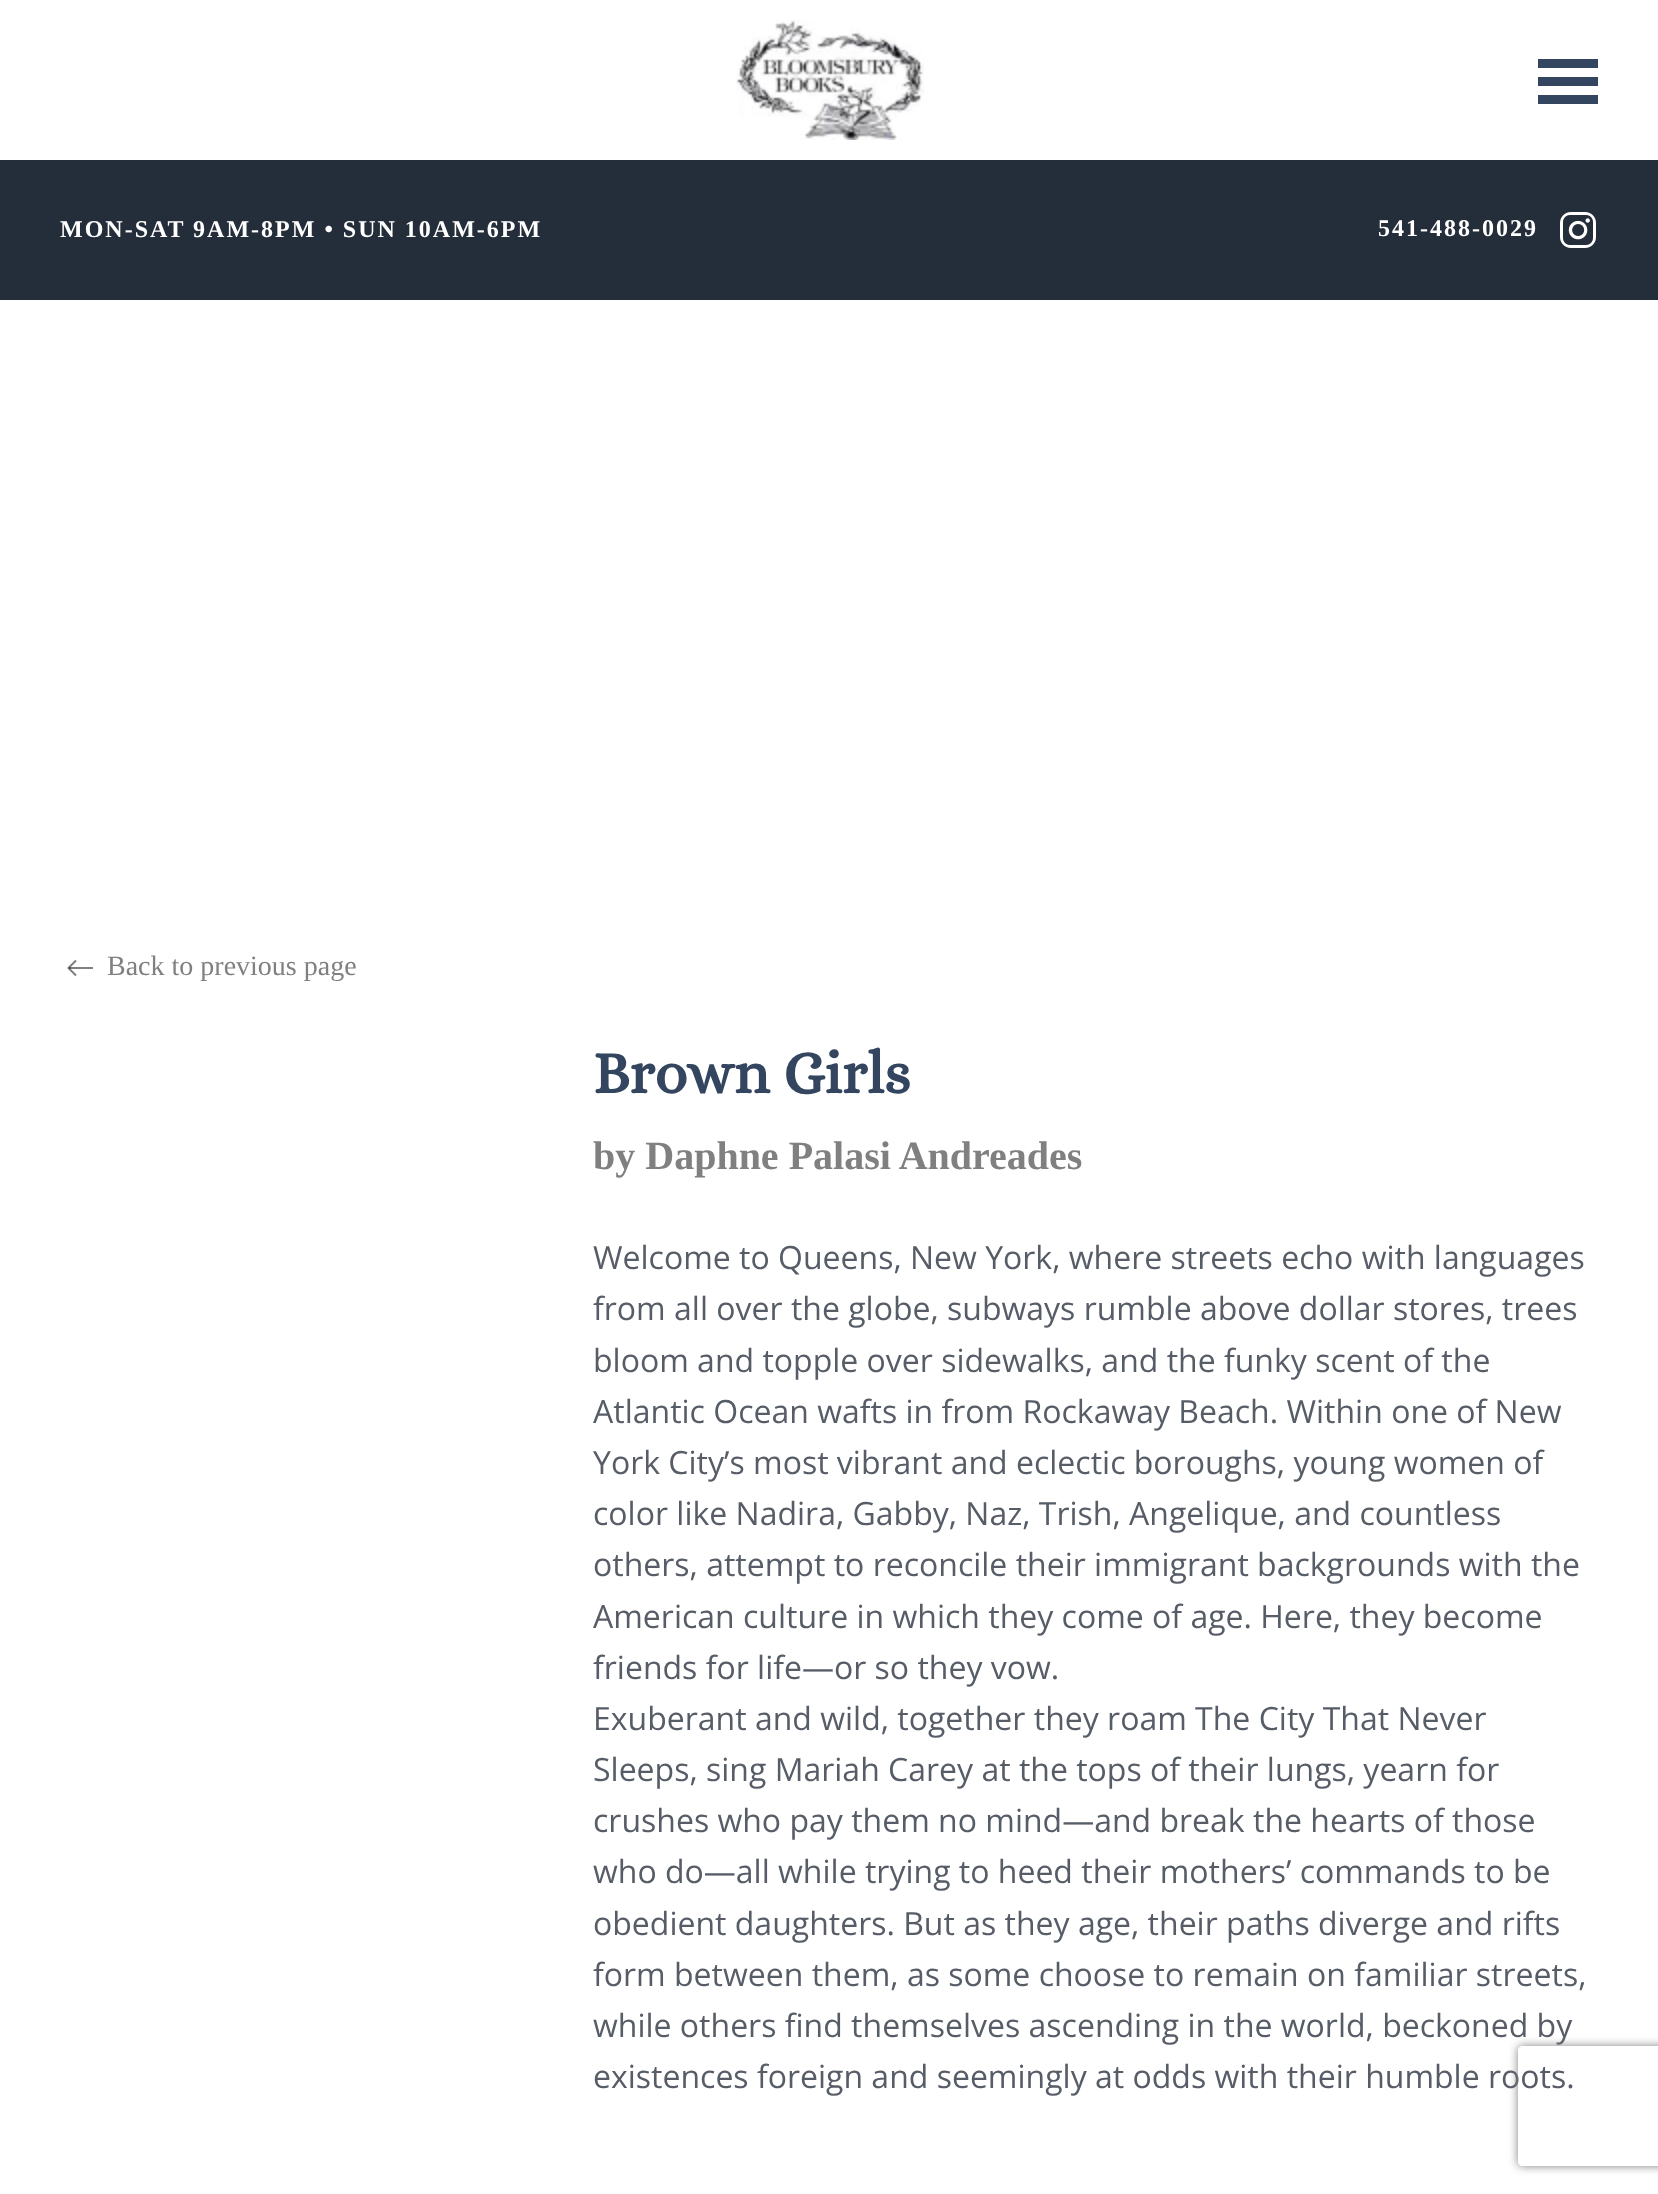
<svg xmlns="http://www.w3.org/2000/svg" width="1658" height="2194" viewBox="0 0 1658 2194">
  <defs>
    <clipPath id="clip1"><path d="M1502 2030H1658V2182H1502ZM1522 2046H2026C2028 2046 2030 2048 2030 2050V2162C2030 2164 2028 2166 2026 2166H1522C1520 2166 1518 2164 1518 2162V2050C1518 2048 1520 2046 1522 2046Z" clip-rule="evenodd"/></clipPath>
    <filter id="blur1" x="-50%" y="-200%" width="200%" height="500%"><feGaussianBlur stdDeviation="5"/></filter>
  </defs>
  <rect width="100%" height="100%" fill="#ffffff"/>
  <image x="736" y="20" width="188" height="120" href="img1.png"/>
  <rect x="1538" y="59" width="60" height="9" fill="#33455f"/>
  <rect x="1538" y="77" width="60" height="9" fill="#33455f"/>
  <rect x="1538" y="95" width="60" height="9" fill="#33455f"/>
  <rect x="0" y="160" width="1658" height="140" fill="#242d3a"/>
  <text x="60" y="237" font-family="Liberation Serif" font-size="24" font-weight="bold" letter-spacing="2" fill="#ffffff">MON-SAT 9AM-8PM • SUN 10AM-6PM</text>
  <text x="1378" y="236" font-family="Liberation Serif" font-size="24" font-weight="bold" letter-spacing="2" fill="#ffffff">541-488-0029</text>
  <image x="1560" y="212" width="36" height="36" href="img2.png"/>
  <rect x="69" y="967" width="24" height="2" fill="#808080"/>
  <path d="M76 960.5L68.5 968L76 975.5" fill="none" stroke="#000000" stroke-opacity="0.5" stroke-width="2"/>
  <text x="107" y="975" font-family="Liberation Serif" font-size="28" fill="#808080">Back to previous page</text>
  <text x="593" y="1093" font-family="Alice" font-size="60" font-weight="bold" fill="#33455f">Brown Girls</text>
  <text x="593" y="1169" font-family="Liberation Serif" font-size="40" font-weight="bold" fill="#808080">by Daphne Palasi Andreades</text>
  <text x="593" y="1269" font-family="Open Sans" font-size="32" fill="#575d67">Welcome to Queens, New York, where streets echo with languages</text>
  <text x="593" y="1320" font-family="Open Sans" font-size="32" fill="#575d67">from all over the globe, subways rumble above dollar stores, trees</text>
  <text x="593" y="1372" font-family="Open Sans" font-size="32" fill="#575d67">bloom and topple over sidewalks, and the funky scent of the</text>
  <text x="593" y="1423" font-family="Open Sans" font-size="32" fill="#575d67">Atlantic Ocean wafts in from Rockaway Beach. Within one of New</text>
  <text x="593" y="1474" font-family="Open Sans" font-size="32" fill="#575d67">York City’s most vibrant and eclectic boroughs, young women of</text>
  <text x="593" y="1525" font-family="Open Sans" font-size="32" fill="#575d67">color like Nadira, Gabby, Naz, Trish, Angelique, and countless</text>
  <text x="593" y="1576" font-family="Open Sans" font-size="32" fill="#575d67">others, attempt to reconcile their immigrant backgrounds with the</text>
  <text x="593" y="1628" font-family="Open Sans" font-size="32" fill="#575d67">American culture in which they come of age. Here, they become</text>
  <text x="593" y="1679" font-family="Open Sans" font-size="32" fill="#575d67">friends for life—or so they vow.</text>
  <text x="593" y="1730" font-family="Open Sans" font-size="32" fill="#575d67">Exuberant and wild, together they roam The City That Never</text>
  <text x="593" y="1781" font-family="Open Sans" font-size="32" fill="#575d67">Sleeps, sing Mariah Carey at the tops of their lungs, yearn for</text>
  <text x="593" y="1832" font-family="Open Sans" font-size="32" fill="#575d67">crushes who pay them no mind—and break the hearts of those</text>
  <text x="593" y="1883" font-family="Open Sans" font-size="32" fill="#575d67">who do—all while trying to heed their mothers’ commands to be</text>
  <text x="593" y="1935" font-family="Open Sans" font-size="32" fill="#575d67">obedient daughters. But as they age, their paths diverge and rifts</text>
  <text x="593" y="1986" font-family="Open Sans" font-size="32" fill="#575d67">form between them, as some choose to remain on familiar streets,</text>
  <text x="593" y="2037" font-family="Open Sans" font-size="32" fill="#575d67">while others find themselves ascending in the world, beckoned by</text>
  <text x="593" y="2088" font-family="Open Sans" font-size="32" fill="#575d67">existences foreign and seemingly at odds with their humble roots.</text>
  <g clip-path="url(#clip1)">
    <rect x="1518" y="2046" width="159" height="120" rx="4" fill="#808080" filter="url(#blur1)"/>
  </g>
</svg>
